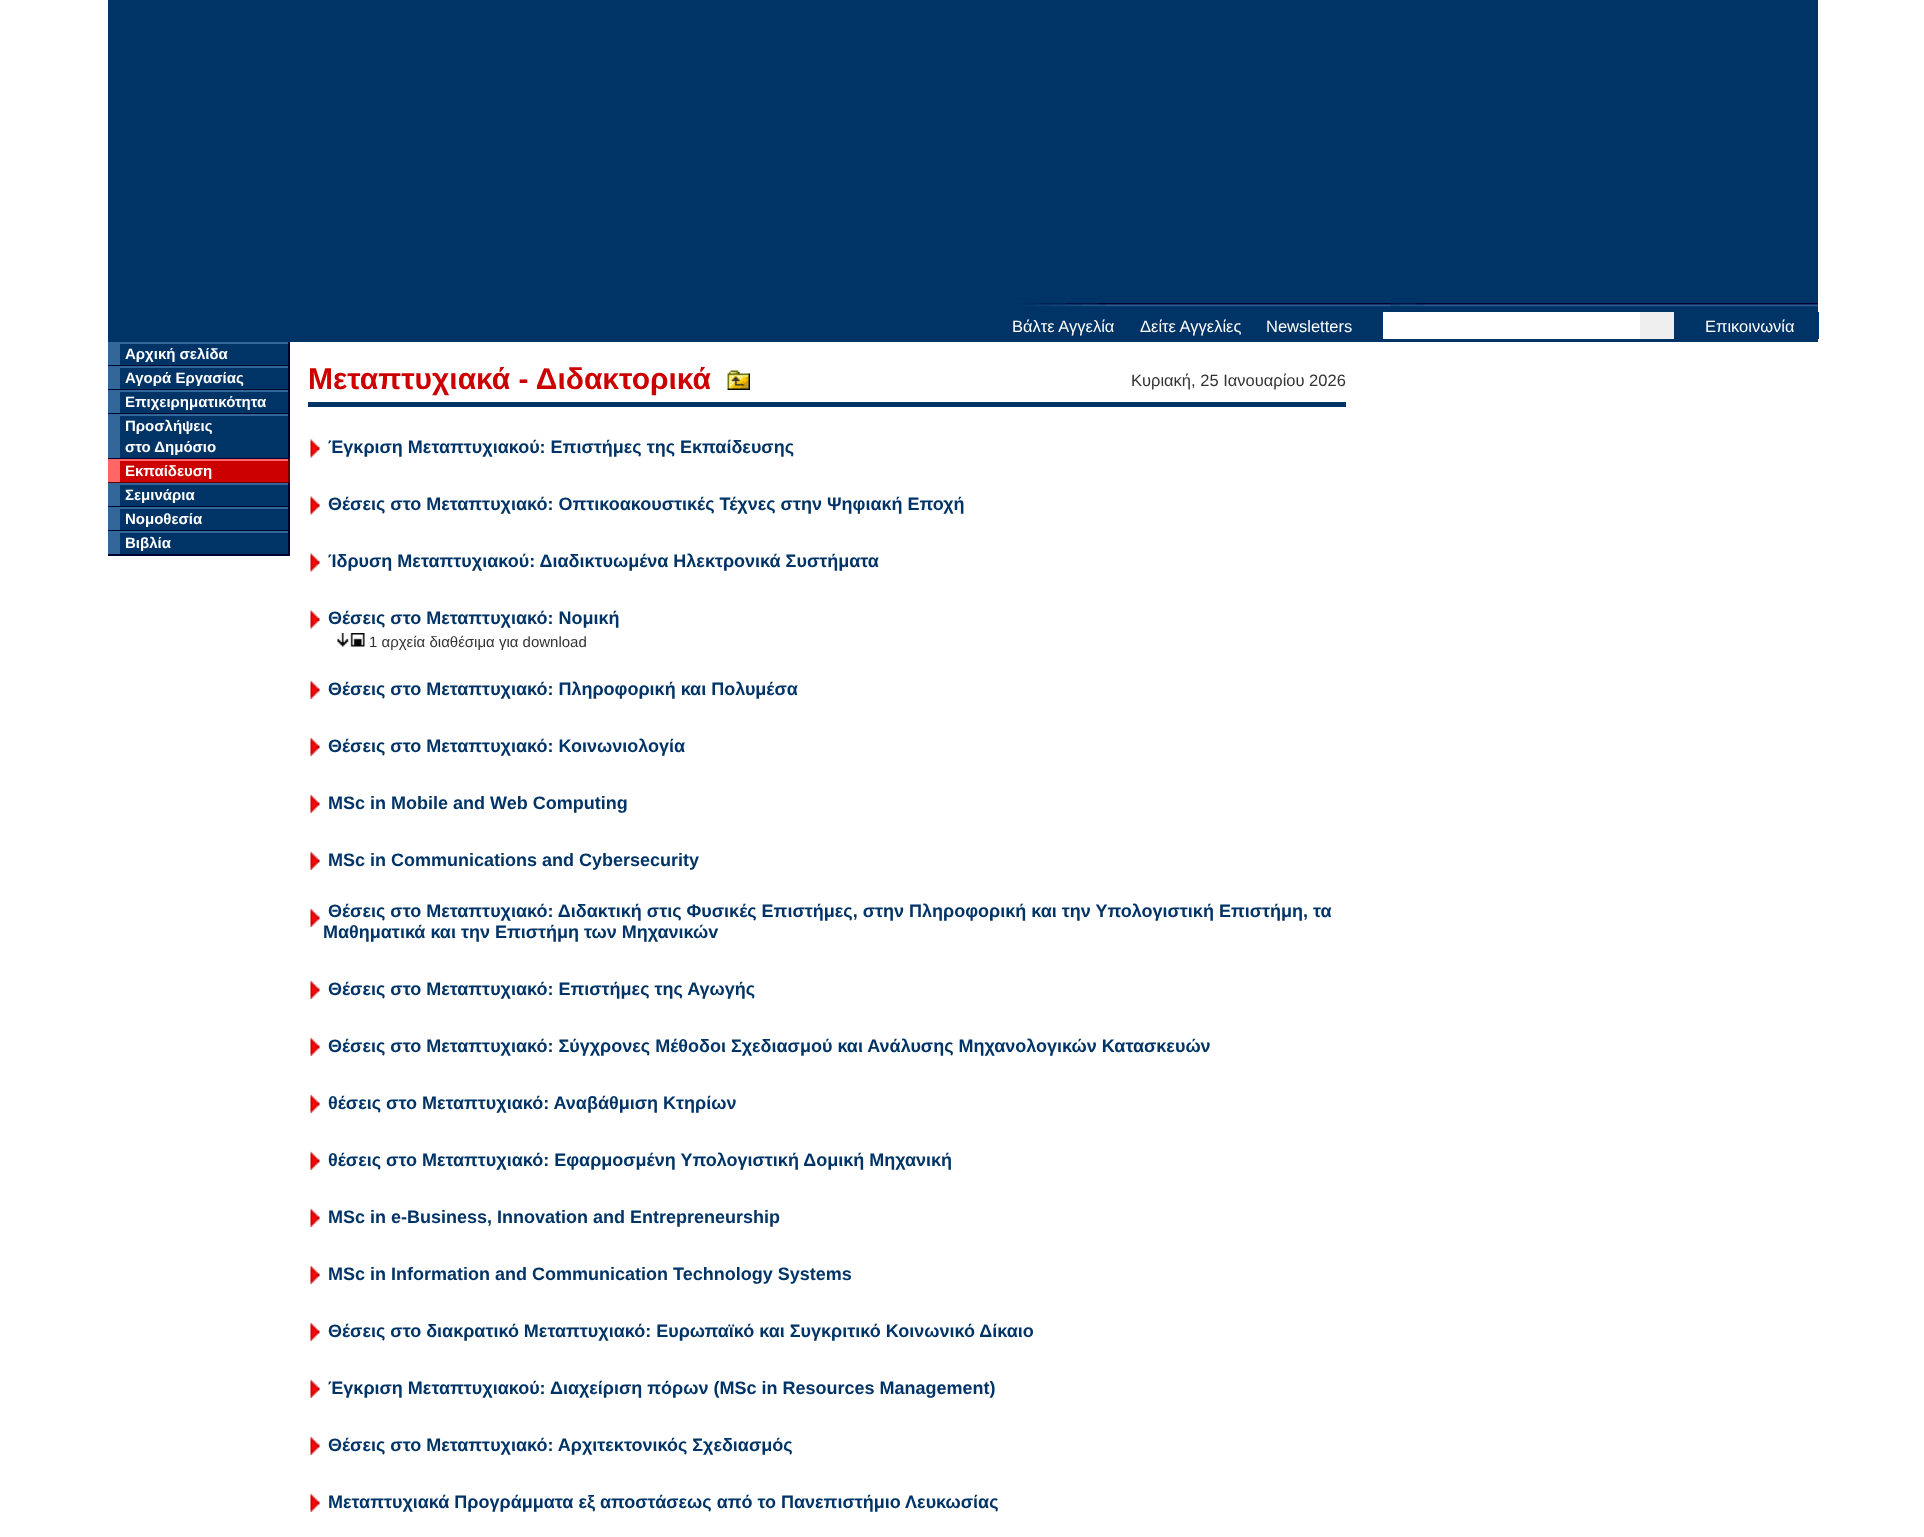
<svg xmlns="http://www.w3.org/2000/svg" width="1924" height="1537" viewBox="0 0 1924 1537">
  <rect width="100%" height="100%" fill="#ffffff"/>
  <rect x="108" y="0" width="1710" height="303" fill="#003366"/>
  <rect x="108" y="303" width="1710" height="9" fill="#003366"/>
  <image x="1020" y="303" width="798" height="4" href="img1.png"/>
  <rect x="108" y="312" width="1711" height="27" fill="#003366"/>
  <text x="1012" y="332" font-family="Liberation Sans" font-size="16.5" fill="#ffffff">Βάλτε Αγγελία</text>
  <text x="1140" y="332" font-family="Liberation Sans" font-size="16.5" fill="#ffffff">Δείτε Αγγελίες</text>
  <text x="1266" y="332" font-family="Liberation Sans" font-size="16.5" fill="#ffffff">Newsletters</text>
  <rect x="1383" y="312" width="257" height="27" fill="#ffffff"/>
  <rect x="1640" y="312" width="34" height="27" fill="#efefef"/>
  <text x="1705" y="332" font-family="Liberation Sans" font-size="16.5" fill="#ffffff">Επικοινωνία</text>
  <rect x="108" y="339" width="1710" height="3" fill="#003366"/>
  <rect x="108" y="342" width="12" height="23" fill="#336699"/>
  <rect x="108" y="365" width="12" height="1" fill="#000033"/>
  <rect x="120" y="344" width="168" height="21" fill="#003366"/>
  <rect x="120" y="342" width="170" height="2" fill="#336699"/>
  <rect x="288" y="342" width="2" height="24" fill="#000033"/>
  <rect x="120" y="365" width="170" height="1" fill="#000033"/>
  <text x="125" y="359" font-family="Liberation Sans" font-size="15" font-weight="bold" fill="#ffffff">Αρχική σελίδα</text>
  <rect x="108" y="366" width="12" height="23" fill="#336699"/>
  <rect x="108" y="389" width="12" height="1" fill="#000033"/>
  <rect x="120" y="368" width="168" height="21" fill="#003366"/>
  <rect x="120" y="366" width="170" height="2" fill="#336699"/>
  <rect x="288" y="366" width="2" height="24" fill="#000033"/>
  <rect x="120" y="389" width="170" height="1" fill="#000033"/>
  <text x="125" y="383" font-family="Liberation Sans" font-size="15" font-weight="bold" fill="#ffffff">Αγορά Εργασίας</text>
  <rect x="108" y="390" width="12" height="23" fill="#336699"/>
  <rect x="108" y="413" width="12" height="1" fill="#000033"/>
  <rect x="120" y="392" width="168" height="21" fill="#003366"/>
  <rect x="120" y="390" width="170" height="2" fill="#336699"/>
  <rect x="288" y="390" width="2" height="24" fill="#000033"/>
  <rect x="120" y="413" width="170" height="1" fill="#000033"/>
  <text x="125" y="407" font-family="Liberation Sans" font-size="15" font-weight="bold" fill="#ffffff">Επιχειρηματικότητα</text>
  <rect x="108" y="414" width="12" height="44" fill="#336699"/>
  <rect x="108" y="458" width="12" height="1" fill="#000033"/>
  <rect x="120" y="416" width="168" height="42" fill="#003366"/>
  <rect x="120" y="414" width="170" height="2" fill="#336699"/>
  <rect x="288" y="414" width="2" height="45" fill="#000033"/>
  <rect x="120" y="458" width="170" height="1" fill="#000033"/>
  <text x="125" y="431" font-family="Liberation Sans" font-size="15" font-weight="bold" fill="#ffffff">Προσλήψεις</text>
  <text x="125" y="452" font-family="Liberation Sans" font-size="15" font-weight="bold" fill="#ffffff">στο Δημόσιο</text>
  <rect x="108" y="459" width="12" height="23" fill="#ff6666"/>
  <rect x="108" y="482" width="12" height="1" fill="#660000"/>
  <rect x="120" y="461" width="168" height="21" fill="#cc0000"/>
  <rect x="120" y="459" width="170" height="2" fill="#ff6666"/>
  <rect x="288" y="459" width="2" height="24" fill="#660000"/>
  <rect x="120" y="482" width="170" height="1" fill="#660000"/>
  <text x="125" y="476" font-family="Liberation Sans" font-size="15" font-weight="bold" fill="#ffffff">Εκπαίδευση</text>
  <rect x="108" y="483" width="12" height="23" fill="#336699"/>
  <rect x="108" y="506" width="12" height="1" fill="#000033"/>
  <rect x="120" y="485" width="168" height="21" fill="#003366"/>
  <rect x="120" y="483" width="170" height="2" fill="#336699"/>
  <rect x="288" y="483" width="2" height="24" fill="#000033"/>
  <rect x="120" y="506" width="170" height="1" fill="#000033"/>
  <text x="125" y="500" font-family="Liberation Sans" font-size="15" font-weight="bold" fill="#ffffff">Σεμινάρια</text>
  <rect x="108" y="507" width="12" height="23" fill="#336699"/>
  <rect x="108" y="530" width="12" height="1" fill="#000033"/>
  <rect x="120" y="509" width="168" height="21" fill="#003366"/>
  <rect x="120" y="507" width="170" height="2" fill="#336699"/>
  <rect x="288" y="507" width="2" height="24" fill="#000033"/>
  <rect x="120" y="530" width="170" height="1" fill="#000033"/>
  <text x="125" y="524" font-family="Liberation Sans" font-size="15" font-weight="bold" fill="#ffffff">Νομοθεσία</text>
  <rect x="108" y="531" width="12" height="23" fill="#336699"/>
  <rect x="108" y="554" width="12" height="2" fill="#000033"/>
  <rect x="120" y="533" width="168" height="21" fill="#003366"/>
  <rect x="120" y="531" width="170" height="2" fill="#336699"/>
  <rect x="288" y="531" width="2" height="24" fill="#000033"/>
  <rect x="120" y="554" width="170" height="2" fill="#000033"/>
  <text x="125" y="548" font-family="Liberation Sans" font-size="15" font-weight="bold" fill="#ffffff">Βιβλία</text>
  <text x="308" y="389" font-family="Liberation Sans" font-size="30" font-weight="bold" fill="#cc0000">Μεταπτυχιακά - Διδακτορικά</text>
  <image x="727" y="370" width="23" height="20" href="img2.png"/>
  <text x="1131" y="386" font-family="Liberation Sans" font-size="16.5" fill="#333333">Κυριακή, 25 Ιανουαρίου 2026</text>
  <rect x="308" y="402" width="1038" height="5" fill="#003366"/>
  <image x="310" y="439" width="10" height="19" href="img3.png"/>
  <text x="328" y="453" font-family="Liberation Sans" font-size="18" font-weight="bold" fill="#003366">Έγκριση Μεταπτυχιακού: Επιστήμες της Εκπαίδευσης</text>
  <image x="310" y="496" width="10" height="19" href="img3.png"/>
  <text x="328" y="510" font-family="Liberation Sans" font-size="18" font-weight="bold" fill="#003366">Θέσεις στο Μεταπτυχιακό: Οπτικοακουστικές Τέχνες στην Ψηφιακή Εποχή</text>
  <image x="310" y="553" width="10" height="19" href="img3.png"/>
  <text x="328" y="567" font-family="Liberation Sans" font-size="18" font-weight="bold" fill="#003366">Ίδρυση Μεταπτυχιακού: Διαδικτυωμένα Ηλεκτρονικά Συστήματα</text>
  <image x="310" y="610" width="10" height="19" href="img3.png"/>
  <text x="328" y="624" font-family="Liberation Sans" font-size="18" font-weight="bold" fill="#003366">Θέσεις στο Μεταπτυχιακό: Νομική</text>
  <image x="337" y="633" width="28" height="14" href="img4.png"/>
  <text x="369" y="647" font-family="Liberation Sans" font-size="15" fill="#333333">1 αρχεία διαθέσιμα για download</text>
  <image x="310" y="680" width="10" height="19" href="img5.png"/>
  <text x="328" y="695" font-family="Liberation Sans" font-size="18" font-weight="bold" fill="#003366">Θέσεις στο Μεταπτυχιακό: Πληροφορική και Πολυμέσα</text>
  <image x="310" y="737" width="10" height="19" href="img5.png"/>
  <text x="328" y="752" font-family="Liberation Sans" font-size="18" font-weight="bold" fill="#003366">Θέσεις στο Μεταπτυχιακό: Κοινωνιολογία</text>
  <image x="310" y="794" width="10" height="19" href="img5.png"/>
  <text x="328" y="809" font-family="Liberation Sans" font-size="18" font-weight="bold" fill="#003366">MSc in Mobile and Web Computing</text>
  <image x="310" y="851" width="10" height="19" href="img5.png"/>
  <text x="328" y="866" font-family="Liberation Sans" font-size="18" font-weight="bold" fill="#003366">MSc in Communications and Cybersecurity</text>
  <image x="310" y="908" width="10" height="19" href="img5.png"/>
  <text x="328" y="917" font-family="Liberation Sans" font-size="18" font-weight="bold" fill="#003366">Θέσεις στο Μεταπτυχιακό: Διδακτική στις Φυσικές Επιστήμες, στην Πληροφορική και την Υπολογιστική Επιστήμη, τα</text>
  <text x="323" y="938" font-family="Liberation Sans" font-size="18" font-weight="bold" fill="#003366">Μαθηματικά και την Επιστήμη των Mηχανικώv</text>
  <image x="310" y="980" width="10" height="19" href="img5.png"/>
  <text x="328" y="995" font-family="Liberation Sans" font-size="18" font-weight="bold" fill="#003366">Θέσεις στο Μεταπτυχιακό: Επιστήμες της Αγωγής</text>
  <image x="310" y="1037" width="10" height="19" href="img5.png"/>
  <text x="328" y="1052" font-family="Liberation Sans" font-size="18" font-weight="bold" fill="#003366">Θέσεις στο Μεταπτυχιακό: Σύγχρονες Μέθοδοι Σχεδιασμού και Ανάλυσης Μηχανολογικών Κατασκευών</text>
  <image x="310" y="1094" width="10" height="19" href="img5.png"/>
  <text x="328" y="1109" font-family="Liberation Sans" font-size="18" font-weight="bold" fill="#003366">θέσεις στο Μεταπτυχιακό: Αναβάθμιση Kτηρίων</text>
  <image x="310" y="1151" width="10" height="19" href="img5.png"/>
  <text x="328" y="1166" font-family="Liberation Sans" font-size="18" font-weight="bold" fill="#003366">θέσεις στο Μεταπτυχιακό: Εφαρμοσμένη Υπολογιστική Δομική Μηχανική</text>
  <image x="310" y="1208" width="10" height="19" href="img5.png"/>
  <text x="328" y="1223" font-family="Liberation Sans" font-size="18" font-weight="bold" fill="#003366">MSc in e-Business, Innovation and Entrepreneurship</text>
  <image x="310" y="1265" width="10" height="19" href="img5.png"/>
  <text x="328" y="1280" font-family="Liberation Sans" font-size="18" font-weight="bold" fill="#003366">MSc in Information and Communication Technology Systems</text>
  <image x="310" y="1322" width="10" height="19" href="img5.png"/>
  <text x="328" y="1337" font-family="Liberation Sans" font-size="18" font-weight="bold" fill="#003366">Θέσεις στο διακρατικό Μεταπτυχιακό: Ευρωπαϊκό και Συγκριτικό Κοινωνικό Δίκαιο</text>
  <image x="310" y="1379" width="10" height="19" href="img5.png"/>
  <text x="328" y="1394" font-family="Liberation Sans" font-size="18" font-weight="bold" fill="#003366">Έγκριση Μεταπτυχιακού: Διαχείριση πόρων (MSc in Resources Management)</text>
  <image x="310" y="1436" width="10" height="19" href="img5.png"/>
  <text x="328" y="1451" font-family="Liberation Sans" font-size="18" font-weight="bold" fill="#003366">Θέσεις στο Μεταπτυχιακό: Αρχιτεκτονικός Σχεδιασμός</text>
  <image x="310" y="1493" width="10" height="19" href="img5.png"/>
  <text x="328" y="1508" font-family="Liberation Sans" font-size="18" font-weight="bold" fill="#003366">Μεταπτυχιακά Προγράμματα εξ αποστάσεως από το Πανεπιστήμιο Λευκωσίας</text>
</svg>
